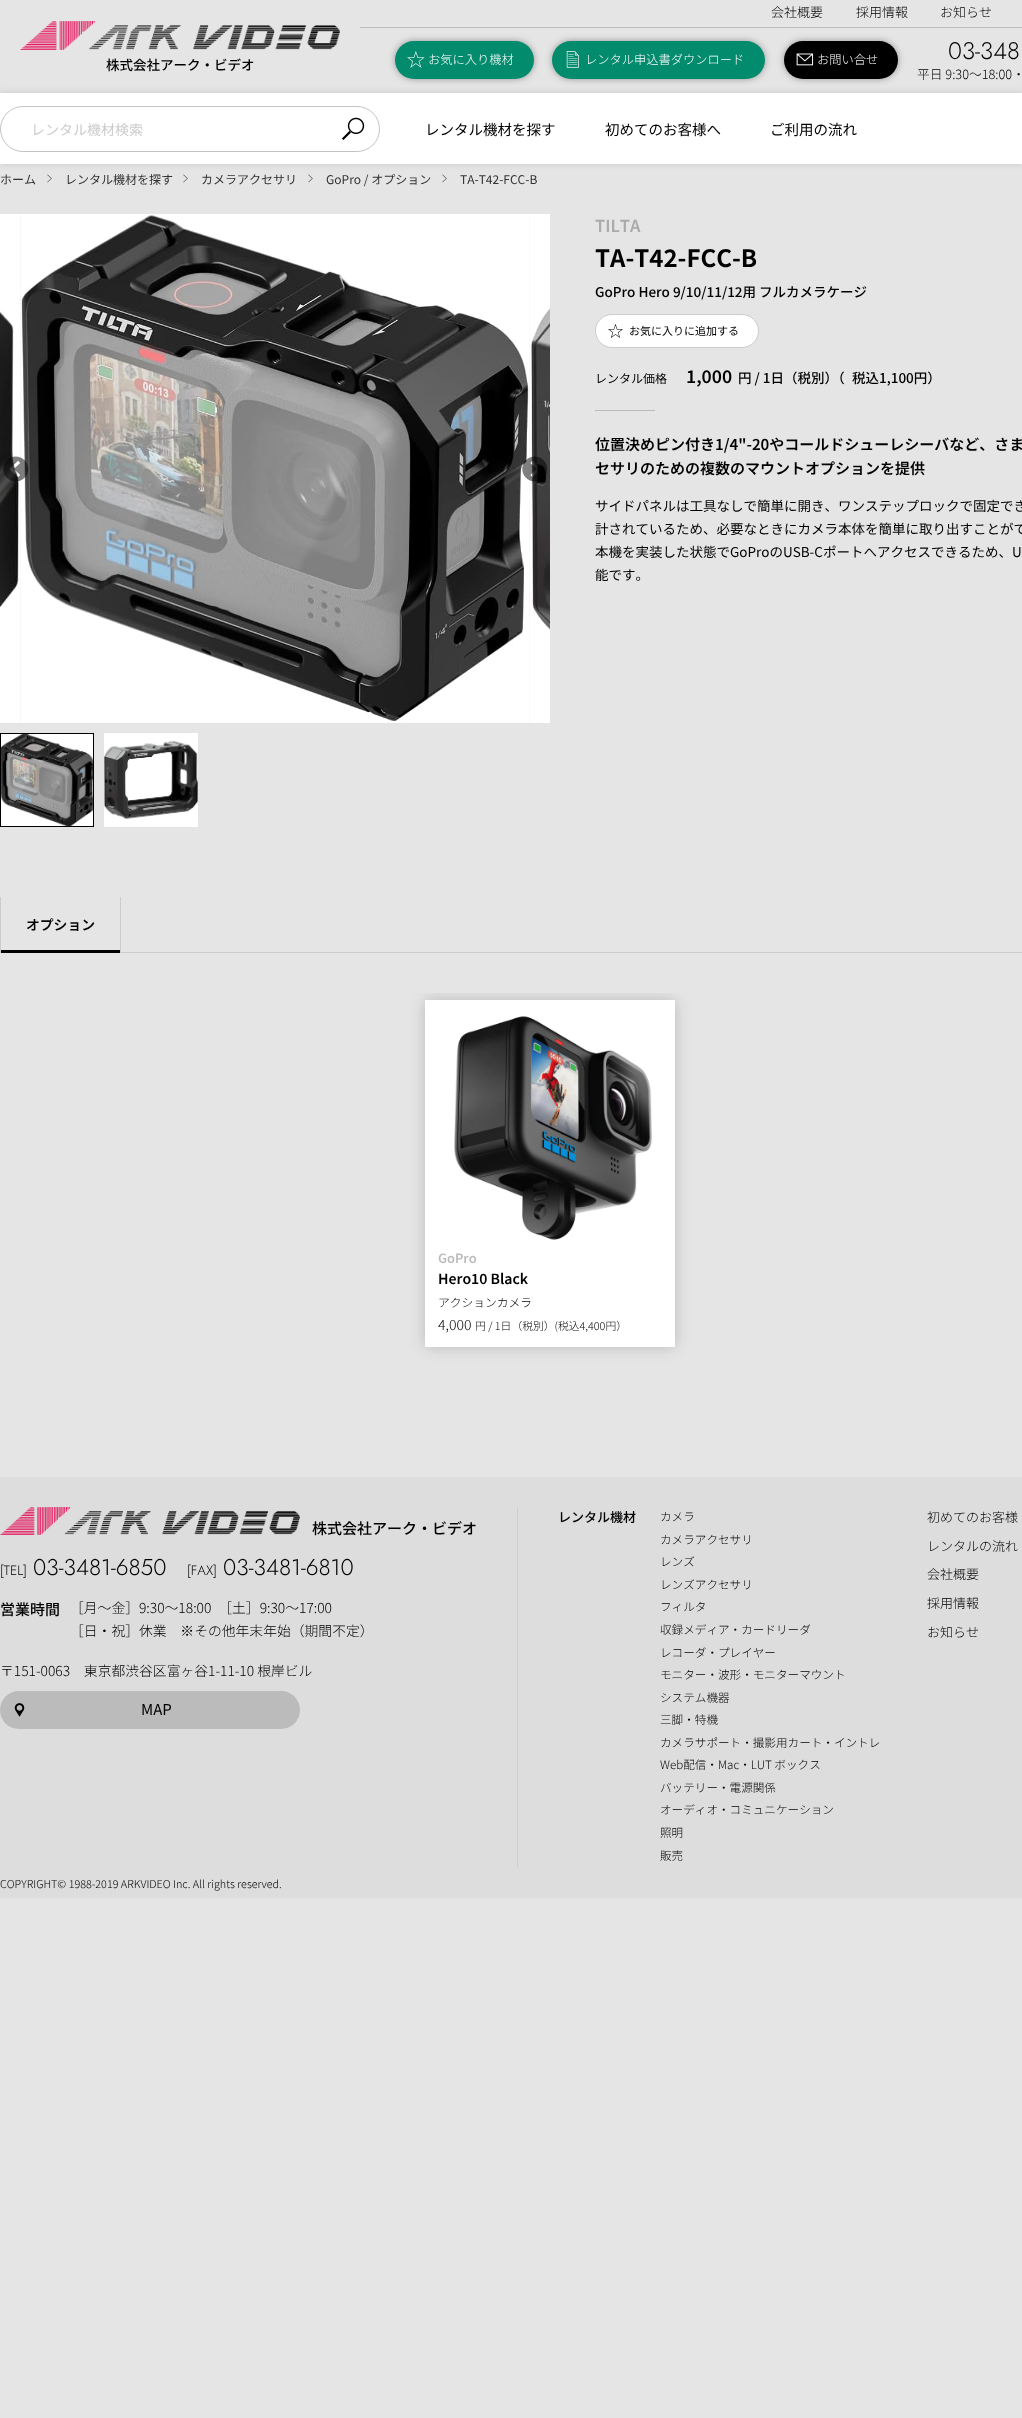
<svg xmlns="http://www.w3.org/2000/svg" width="1022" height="2418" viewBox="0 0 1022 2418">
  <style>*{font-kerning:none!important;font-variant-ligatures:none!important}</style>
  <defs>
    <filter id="blur1" x="-50%" y="-200%" width="200%" height="500%"><feGaussianBlur stdDeviation="3.5"/></filter>
    <clipPath id="clip1"><rect x="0" y="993" width="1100" height="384"/></clipPath>
    <clipPath id="clip2"><path d="M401 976H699V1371H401ZM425 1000H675V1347H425Z" clip-rule="evenodd"/></clipPath>
    <filter id="blur2" x="-50%" y="-200%" width="200%" height="500%"><feGaussianBlur stdDeviation="7.5"/></filter>
  </defs>
  <rect width="100%" height="100%" fill="#e5e5e5"/>
  <image x="20" y="21" width="320" height="29" href="img1.png"/>
  <text x="106" y="70" font-family="Noto Sans JP" font-size="13.5" font-weight="500" fill="#000000">株式会社アーク・ビデオ</text>
  <text x="771" y="17" font-family="Noto Sans JP" font-size="13" font-weight="300" fill="#000000">会社概要</text>
  <text x="856" y="17" font-family="Noto Sans JP" font-size="13" font-weight="300" fill="#000000">採用情報</text>
  <text x="940" y="17" font-family="Noto Sans JP" font-size="13" font-weight="300" fill="#000000">お知らせ</text>
  <rect x="360" y="27" width="662" height="1" fill="#bcbcbc"/>
  <rect x="395" y="41" width="139" height="38" rx="19" fill="#000000" fill-opacity="0.35" filter="url(#blur1)"/>
  <rect x="395" y="41" width="139" height="38" rx="19" fill="#038b6e"/>
  <image x="407" y="51" width="18" height="17" href="img2.png"/>
  <text x="428" y="64" font-family="Noto Sans JP" font-size="12.25" font-weight="300" fill="#ffffff">お気に入り機材</text>
  <rect x="552" y="41" width="213" height="38" rx="19" fill="#000000" fill-opacity="0.35" filter="url(#blur1)"/>
  <rect x="552" y="41" width="213" height="38" rx="19" fill="#038b6e"/>
  <image x="566" y="51" width="13" height="17" href="img3.png"/>
  <text x="585" y="64" font-family="Noto Sans JP" font-size="12.25" font-weight="300" fill="#ffffff">レンタル申込書ダウンロード</text>
  <rect x="784" y="41" width="114" height="38" rx="19" fill="#000000" fill-opacity="0.35" filter="url(#blur1)"/>
  <rect x="784" y="41" width="114" height="38" rx="19" fill="#000000"/>
  <image x="796" y="53" width="18" height="13" href="img4.png"/>
  <text x="817" y="64" font-family="Noto Sans JP" font-size="12.25" font-weight="300" fill="#ffffff">お問い合せ</text>
  <text x="948" y="59" font-family="Jost" font-size="24" font-weight="300" fill="#000000">03-348</text>
  <text x="917" y="79" font-family="Noto Sans JP" font-size="12.75" font-weight="300" fill="#000000">平日 9:30〜18:00・</text>
  <rect x="0" y="93" width="1022" height="71" fill="#000000" fill-opacity="0.13" filter="url(#blur1)"/>
  <rect x="0" y="93" width="1022" height="71" fill="#ffffff"/>
  <rect x="0.5" y="106.5" width="379" height="45" rx="22.5" fill="none" stroke="#c3c3c3"/>
  <text x="31" y="135" font-family="Noto Sans JP" font-size="14" fill="#cccccc">レンタル機材検索</text>
  <image x="341" y="117" width="24" height="23" href="img5.png"/>
  <text x="425" y="135" font-family="Noto Sans JP" font-size="14.5" fill="#000000">レンタル機材を探す</text>
  <text x="605" y="135" font-family="Noto Sans JP" font-size="14.5" fill="#000000">初めてのお客様へ</text>
  <text x="770" y="135" font-family="Noto Sans JP" font-size="14.5" fill="#000000">ご利用の流れ</text>
  <text x="0" y="184" font-family="Noto Sans JP" font-size="12" fill="#333333">ホーム</text>
  <image x="47" y="174" width="5" height="9" href="img6.png"/>
  <text x="65" y="184" font-family="Noto Sans JP" font-size="12" fill="#333333">レンタル機材を探す</text>
  <image x="183" y="174" width="5" height="9" href="img6.png"/>
  <text x="201" y="184" font-family="Noto Sans JP" font-size="12" fill="#333333">カメラアクセサリ</text>
  <image x="308" y="174" width="5" height="9" href="img6.png"/>
  <text x="326" y="184" font-family="Noto Sans JP" font-size="12" fill="#333333">GoPro / オプション</text>
  <image x="442" y="174" width="5" height="9" href="img6.png"/>
  <text x="460" y="184" font-family="Noto Sans JP" font-size="12" fill="#333333">TA-T42-FCC-B</text>
  <image x="0" y="214" width="21" height="509" href="img7.png"/>
  <image x="20" y="214" width="510" height="509" href="img8.png"/>
  <image x="529" y="214" width="21" height="509" href="img9.png"/>
  <image x="3" y="456" width="26" height="26" href="img10.png"/>
  <image x="522" y="456" width="26" height="26" href="img11.png"/>
  <image x="1" y="734" width="92" height="92" href="img12.png"/>
  <rect x="0.5" y="733.5" width="93" height="93" fill="none" stroke="#000000"/>
  <rect x="104" y="733" width="94" height="94" fill="#ffffff"/>
  <image x="104" y="740" width="94" height="79" href="img13.png"/>
  <text x="595" y="232" font-family="Noto Sans JP" font-size="16.5" font-weight="600" fill="#aaaaaa">TILTA</text>
  <text x="595" y="267" font-family="Noto Sans JP" font-size="24" font-weight="bold" fill="#000000">TA-T42-FCC-B</text>
  <text x="595" y="297" font-family="Noto Sans JP" font-size="13.5" font-weight="500" fill="#000000">GoPro Hero 9/10/11/12用 フルカメラケージ</text>
  <rect x="595.5" y="314.5" width="163" height="33" rx="16.5" fill="#ffffff" stroke="#cccccc"/>
  <image x="608" y="324" width="15" height="14" href="img14.png"/>
  <text x="629" y="335" font-family="Noto Sans JP" font-size="11" fill="#000000">お気に入りに追加する</text>
  <text x="595" y="383" font-family="Noto Sans JP" font-size="12" fill="#000000">レンタル価格</text>
  <text x="686" y="383" font-family="Noto Sans JP" font-size="17.5" font-weight="600" fill="#000000">1,000</text>
  <text x="738" y="383" font-family="Noto Sans JP" font-size="13.5" font-weight="500" fill="#000000">円 / 1日（税別）（</text>
  <text x="852" y="383" font-family="Noto Sans JP" font-size="13.5" font-weight="500" fill="#000000">税込1,100円）</text>
  <rect x="595" y="410" width="60" height="1" fill="#bbbbbb"/>
  <text x="595" y="450" font-family="Noto Sans JP" font-size="15" font-weight="600" fill="#000000">位置決めピン付き1/4"-20やコールドシューレシーバなど、さま</text>
  <text x="595" y="474" font-family="Noto Sans JP" font-size="15" font-weight="600" fill="#000000">セサリのための複数のマウントオプションを提供</text>
  <text x="595" y="511" font-family="Noto Sans JP" font-size="13.5" fill="#000000">サイドパネルは工具なしで簡単に開き、ワンステップロックで固定でき</text>
  <text x="595" y="534" font-family="Noto Sans JP" font-size="13.5" fill="#000000">計されているため、必要なときにカメラ本体を簡単に取り出すことがで</text>
  <text x="595" y="557" font-family="Noto Sans JP" font-size="13.5" fill="#000000">本機を実装した状態でGoProのUSB-Cポートへアクセスできるため、U</text>
  <text x="595" y="580" font-family="Noto Sans JP" font-size="13.5" fill="#000000">能です。</text>
  <rect x="0" y="952" width="1022" height="1" fill="#cccccc"/>
  <rect x="120" y="897" width="1" height="55" fill="#cccccc"/>
  <rect x="0" y="897" width="1" height="55" fill="#cccccc"/>
  <text x="26" y="930" font-family="Noto Sans JP" font-size="13.8" font-weight="600" fill="#000000">オプション</text>
  <rect x="1" y="950" width="119" height="3" fill="#000000"/>
  <rect x="425" y="1000" width="250" height="347" fill="#ffffff"/>
  <g clip-path="url(#clip1)">
    <g clip-path="url(#clip2)">
      <rect x="425" y="1000" width="250" height="347" fill="#000000" fill-opacity="0.19" filter="url(#blur2)"/>
    </g>
  </g>
  <image x="454" y="1016" width="198" height="224" href="img15.png"/>
  <text x="438" y="1263" font-family="Noto Sans JP" font-size="12.75" font-weight="600" fill="#bbbbbb">GoPro</text>
  <text x="438" y="1284" font-family="Noto Sans JP" font-size="14" font-weight="600" fill="#000000">Hero10 Black</text>
  <text x="438" y="1307" font-family="Noto Sans JP" font-size="11.75" font-weight="300" fill="#000000">アクションカメラ</text>
  <text x="438" y="1330" font-family="Noto Sans JP" font-size="14" font-weight="300" fill="#000000">4,000</text>
  <text x="475" y="1330" font-family="Noto Sans JP" font-size="10.8" font-weight="300" fill="#000000">円 / 1日（税別）(税込4,400円）</text>
  <rect x="0" y="1477" width="1022" height="421" fill="#dddddd"/>
  <rect x="517" y="1507" width="1" height="361" fill="#cfcfcf"/>
  <image x="0" y="1507" width="300" height="28" href="img16.png"/>
  <text x="312" y="1534" font-family="Noto Sans JP" font-size="15" font-weight="500" fill="#000000">株式会社アーク・ビデオ</text>
  <text x="0" y="1575" font-family="Jost" font-size="13.5" font-weight="300" fill="#000000">[TEL]</text>
  <text x="33" y="1575" font-family="Jost" font-size="22.75" font-weight="300" fill="#000000">03-3481-6850</text>
  <text x="187" y="1575" font-family="Jost" font-size="13.5" font-weight="300" fill="#000000">[FAX]</text>
  <text x="223" y="1575" font-family="Jost" font-size="22.75" font-weight="300" fill="#000000">03-3481-6810</text>
  <text x="0" y="1615" font-family="Noto Sans JP" font-size="15" font-weight="500" fill="#000000">営業時間</text>
  <text x="70" y="1613" font-family="Noto Sans JP" font-size="13.8" font-weight="300" fill="#000000">［月〜金］9:30〜18:00　［土］9:30〜17:00</text>
  <text x="70" y="1636" font-family="Noto Sans JP" font-size="13.8" font-weight="300" fill="#000000">［日・祝］休業　※その他年末年始（期間不定）</text>
  <text x="0" y="1676" font-family="Noto Sans JP" font-size="13.8" font-weight="300" fill="#000000">〒151-0063　東京都渋谷区富ヶ谷1-11-10 根岸ビル</text>
  <rect x="0" y="1691" width="300" height="38" rx="19" fill="#bbbbbb"/>
  <image x="14" y="1703" width="11" height="14" href="img17.png"/>
  <text x="141" y="1715" font-family="Noto Sans JP" font-size="15" fill="#000000">MAP</text>
  <text x="558" y="1522" font-family="Noto Sans JP" font-size="13" font-weight="500" fill="#000000">レンタル機材</text>
  <text x="660" y="1521" font-family="Noto Sans JP" font-size="11.6" font-weight="300" fill="#000000">カメラ</text>
  <text x="660" y="1544" font-family="Noto Sans JP" font-size="11.6" font-weight="300" fill="#000000">カメラアクセサリ</text>
  <text x="660" y="1566" font-family="Noto Sans JP" font-size="11.6" font-weight="300" fill="#000000">レンズ</text>
  <text x="660" y="1589" font-family="Noto Sans JP" font-size="11.6" font-weight="300" fill="#000000">レンズアクセサリ</text>
  <text x="660" y="1611" font-family="Noto Sans JP" font-size="11.6" font-weight="300" fill="#000000">フィルタ</text>
  <text x="660" y="1634" font-family="Noto Sans JP" font-size="11.6" font-weight="300" fill="#000000">収録メディア・カードリーダ</text>
  <text x="660" y="1657" font-family="Noto Sans JP" font-size="11.6" font-weight="300" fill="#000000">レコーダ・プレイヤー</text>
  <text x="660" y="1679" font-family="Noto Sans JP" font-size="11.6" font-weight="300" fill="#000000">モニター・波形・モニターマウント</text>
  <text x="660" y="1702" font-family="Noto Sans JP" font-size="11.6" font-weight="300" fill="#000000">システム機器</text>
  <text x="660" y="1724" font-family="Noto Sans JP" font-size="11.6" font-weight="300" fill="#000000">三脚・特機</text>
  <text x="660" y="1747" font-family="Noto Sans JP" font-size="11.6" font-weight="300" fill="#000000">カメラサポート・撮影用カート・イントレ</text>
  <text x="660" y="1769" font-family="Noto Sans JP" font-size="11.6" font-weight="300" fill="#000000">Web配信・Mac・LUT ボックス</text>
  <text x="660" y="1792" font-family="Noto Sans JP" font-size="11.6" font-weight="300" fill="#000000">バッテリー・電源関係</text>
  <text x="660" y="1814" font-family="Noto Sans JP" font-size="11.6" font-weight="300" fill="#000000">オーディオ・コミュニケーション</text>
  <text x="660" y="1837" font-family="Noto Sans JP" font-size="11.6" font-weight="300" fill="#000000">照明</text>
  <text x="660" y="1860" font-family="Noto Sans JP" font-size="11.6" font-weight="300" fill="#000000">販売</text>
  <text x="927" y="1522" font-family="Noto Sans JP" font-size="13" font-weight="300" fill="#000000">初めてのお客様</text>
  <text x="927" y="1551" font-family="Noto Sans JP" font-size="13" font-weight="300" fill="#000000">レンタルの流れ</text>
  <text x="927" y="1579" font-family="Noto Sans JP" font-size="13" font-weight="300" fill="#000000">会社概要</text>
  <text x="927" y="1608" font-family="Noto Sans JP" font-size="13" font-weight="300" fill="#000000">採用情報</text>
  <text x="927" y="1637" font-family="Noto Sans JP" font-size="13" font-weight="300" fill="#000000">お知らせ</text>
  <text x="0" y="1888" font-family="Noto Sans JP" font-size="10.8" font-weight="300" fill="#000000">COPYRIGHT© 1988-2019 ARKVIDEO Inc. All rights reserved.</text>
</svg>
